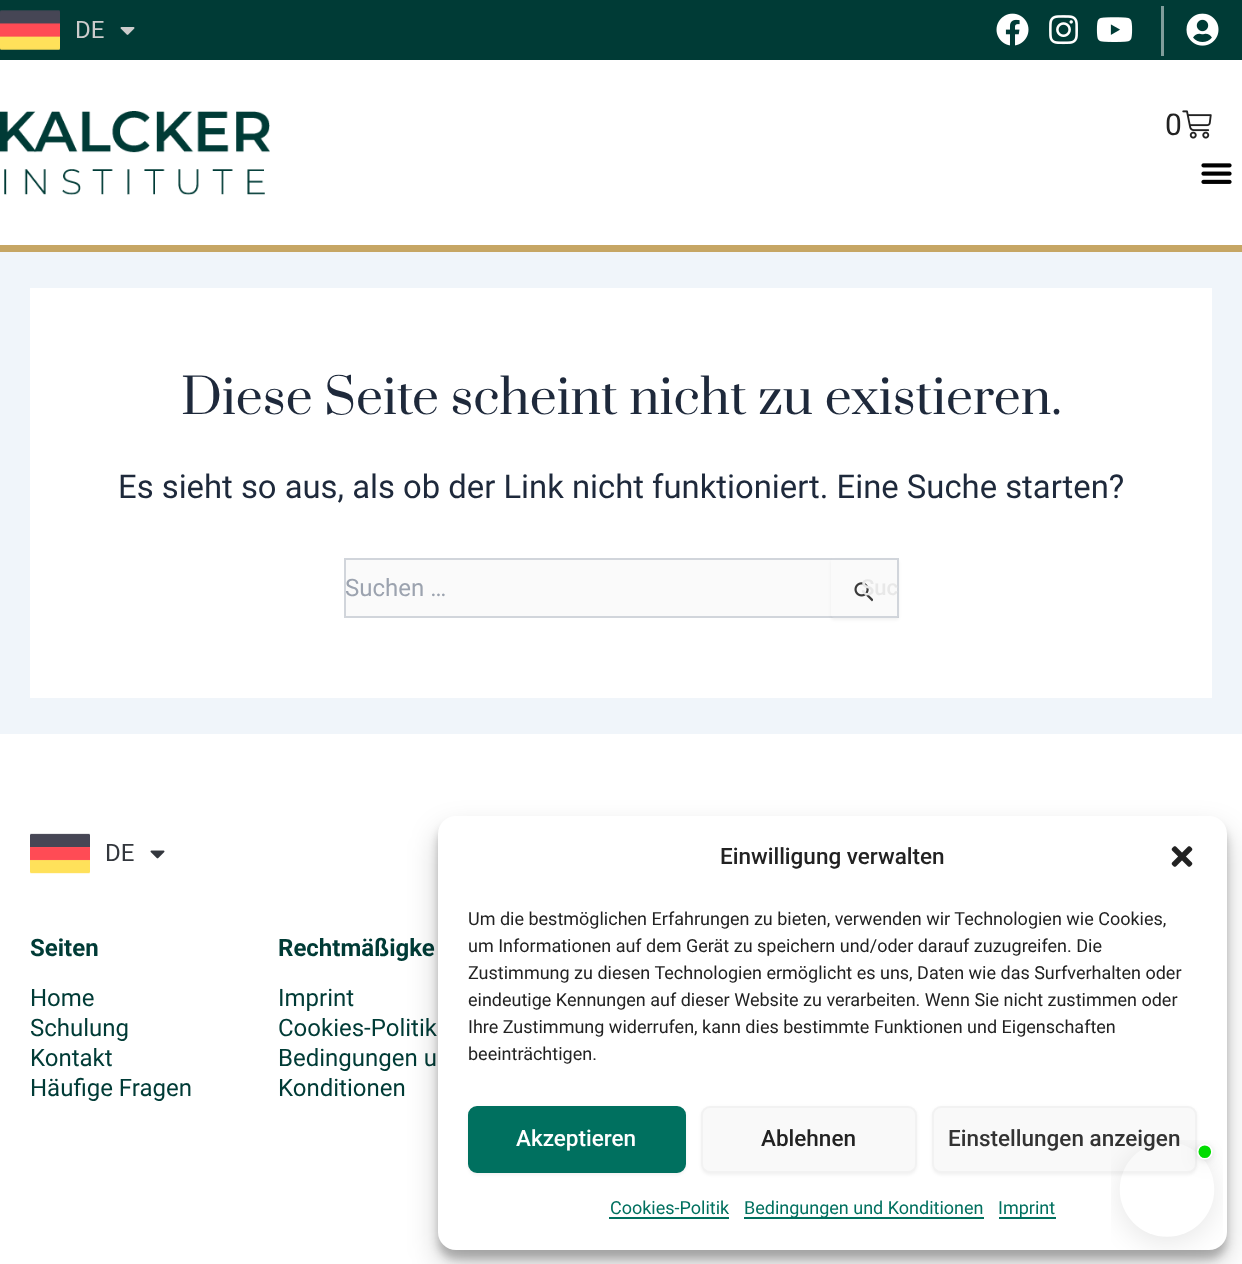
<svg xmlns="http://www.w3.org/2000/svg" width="1242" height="1264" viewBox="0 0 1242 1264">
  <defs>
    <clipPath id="clip1"><path d="M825 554H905V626H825ZM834 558H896C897.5 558 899 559.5 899 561V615C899 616.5 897.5 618 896 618H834C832.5 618 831 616.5 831 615V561C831 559.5 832.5 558 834 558Z" clip-rule="evenodd"/></clipPath>
    <filter id="blur1" x="-50%" y="-200%" width="200%" height="500%"><feGaussianBlur stdDeviation="1.5"/></filter>
    <filter id="blur2" x="-50%" y="-200%" width="200%" height="500%"><feGaussianBlur stdDeviation="4.5"/></filter>
    <filter id="blur3" x="-50%" y="-200%" width="200%" height="500%"><feGaussianBlur stdDeviation="15"/></filter>
  </defs>
  <rect width="100%" height="100%" fill="#f0f5fa"/>
  <rect x="0" y="60" width="1242" height="185" fill="#ffffff"/>
  <rect x="0" y="245" width="1242" height="7" fill="#c6a664"/>
  <rect x="0" y="0" width="1242" height="60" fill="#003b36"/>
  <image x="0" y="10" width="60" height="40" href="img1.png"/>
  <text x="75" y="38" font-family="Roboto" font-size="24" fill="#cccccc">DE</text>
  <image x="120" y="27" width="15" height="8" href="img2.png"/>
  <image x="996" y="13" width="33" height="33" href="img3.png"/>
  <image x="1049" y="15" width="29" height="30" href="img4.png"/>
  <image x="1096" y="17" width="37" height="25" href="img5.png"/>
  <rect x="1161" y="6" width="3" height="50" fill="#809d9b"/>
  <image x="1186" y="13" width="33" height="33" href="img6.png"/>
  <image x="0" y="111" width="270" height="84" href="img7.png"/>
  <text x="1165" y="135" font-family="Roboto" font-size="30" fill="#222222">0</text>
  <image x="1182" y="110" width="30" height="29" href="img8.png"/>
  <image x="1201" y="163" width="31" height="21" href="img9.png"/>
  <rect x="30" y="288" width="1182" height="410" fill="#ffffff"/>
  <text x="181" y="414" font-family="Prata" font-size="48" fill="#1e293b">Diese Seite scheint nicht zu existieren.</text>
  <text x="118" y="498" font-family="Roboto" font-size="32.8" fill="#1e293b">Es sieht so aus, als ob der Link nicht funktioniert. Eine Suche starten?</text>
  <rect x="345" y="559" width="553" height="58" fill="#fafafa" stroke="#d1d5db" stroke-width="2"/>
  <text x="345" y="596" font-family="Roboto" font-size="24" fill="#9ca3af">Suchen …</text>
  <image x="854" y="582" width="19" height="20" href="img10.png"/>
  <g clip-path="url(#clip1)">
    <rect x="831" y="560" width="68" height="60" rx="3" fill="#000000" fill-opacity="0.05" filter="url(#blur1)"/>
  </g>
  <text x="861" y="595" font-family="Roboto" font-size="22" font-weight="500" fill="#e8e8e8">Suc</text>
  <rect x="0" y="734" width="1242" height="530" fill="#ffffff"/>
  <image x="30" y="833" width="60" height="41" href="img11.png"/>
  <text x="105" y="861" font-family="Roboto" font-size="24" fill="#33373d">DE</text>
  <image x="150" y="850" width="15" height="9" href="img12.png"/>
  <text x="30" y="956" font-family="Roboto" font-size="24" font-weight="bold" fill="#003b36">Seiten</text>
  <text x="30" y="1006" font-family="Roboto" font-size="24" fill="#003b36">Home</text>
  <text x="30" y="1036" font-family="Roboto" font-size="24" fill="#003b36">Schulung</text>
  <text x="30" y="1066" font-family="Roboto" font-size="24" fill="#003b36">Kontakt</text>
  <text x="30" y="1096" font-family="Roboto" font-size="24" fill="#003b36">Häufige Fragen</text>
  <text x="278" y="956" font-family="Roboto" font-size="24" font-weight="bold" fill="#003b36">Rechtmäßigke</text>
  <text x="278" y="1006" font-family="Roboto" font-size="24" fill="#003b36">Imprint</text>
  <text x="278" y="1036" font-family="Roboto" font-size="24" fill="#003b36">Cookies-Politik</text>
  <text x="278" y="1066" font-family="Roboto" font-size="24" fill="#003b36">Bedingungen u</text>
  <text x="278" y="1096" font-family="Roboto" font-size="24" fill="#003b36">Konditionen</text>
  <rect x="438" y="825" width="789" height="434" rx="18" fill="#000000" fill-opacity="0.23" filter="url(#blur2)"/>
  <rect x="438" y="831" width="789" height="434" rx="18" fill="#000000" fill-opacity="0.19" filter="url(#blur3)"/>
  <rect x="438" y="816" width="789" height="434" rx="18" fill="#ffffff"/>
  <text x="720" y="864" font-family="Roboto" font-size="22.5" font-weight="500" fill="#222222">Einwilligung verwalten</text>
  <image x="1171" y="846" width="22" height="21" href="img13.png"/>
  <text x="468" y="925" font-family="Roboto" font-size="18" fill="#222222">Um die bestmöglichen Erfahrungen zu bieten, verwenden wir Technologien wie Cookies,</text>
  <text x="468" y="952" font-family="Roboto" font-size="18" fill="#222222">um Informationen auf dem Gerät zu speichern und/oder darauf zuzugreifen. Die</text>
  <text x="468" y="979" font-family="Roboto" font-size="18" fill="#222222">Zustimmung zu diesen Technologien ermöglicht es uns, Daten wie das Surfverhalten oder</text>
  <text x="468" y="1006" font-family="Roboto" font-size="18" fill="#222222">eindeutige Kennungen auf dieser Website zu verarbeiten. Wenn Sie nicht zustimmen oder</text>
  <text x="468" y="1033" font-family="Roboto" font-size="18" fill="#222222">Ihre Zustimmung widerrufen, kann dies bestimmte Funktionen und Eigenschaften</text>
  <text x="468" y="1060" font-family="Roboto" font-size="18" fill="#222222">beeinträchtigen.</text>
  <rect x="468" y="1107" width="218" height="68" rx="9" fill="#000000" fill-opacity="0.05" filter="url(#blur1)"/>
  <rect x="469" y="1107" width="216" height="65" rx="8" fill="#00705f" stroke="#00705f" stroke-width="2"/>
  <text x="516" y="1146" font-family="Roboto" font-size="22.5" font-weight="500" fill="#ffffff">Akzeptieren</text>
  <rect x="701" y="1107" width="216" height="68" rx="9" fill="#000000" fill-opacity="0.05" filter="url(#blur1)"/>
  <rect x="702" y="1107" width="214" height="65" rx="8" fill="#f9f9f9" stroke="#f2f2f2" stroke-width="2"/>
  <text x="761" y="1146" font-family="Roboto" font-size="22.5" font-weight="500" fill="#222222">Ablehnen</text>
  <rect x="932" y="1107" width="265" height="68" rx="9" fill="#000000" fill-opacity="0.05" filter="url(#blur1)"/>
  <rect x="933" y="1107" width="263" height="65" rx="8" fill="#f9f9f9" stroke="#f2f2f2" stroke-width="2"/>
  <text x="948" y="1146" font-family="Roboto" font-size="22.5" font-weight="500" fill="#333333">Einstellungen anzeigen</text>
  <text x="610" y="1214" font-family="Roboto" font-size="18" fill="#00705f">Cookies-Politik</text>
  <rect x="609" y="1217" width="120" height="2" fill="#00705f"/>
  <rect x="744" y="1217" width="240" height="2" fill="#00705f"/>
  <text x="744" y="1214" font-family="Roboto" font-size="18" fill="#00705f">Bedingungen und Konditionen</text>
  <rect x="999" y="1217" width="57" height="2" fill="#00705f"/>
  <text x="998" y="1214" font-family="Roboto" font-size="18" fill="#00705f">Imprint</text>
  <image x="1111" y="1140" width="112" height="110" href="img14.png"/>
</svg>
